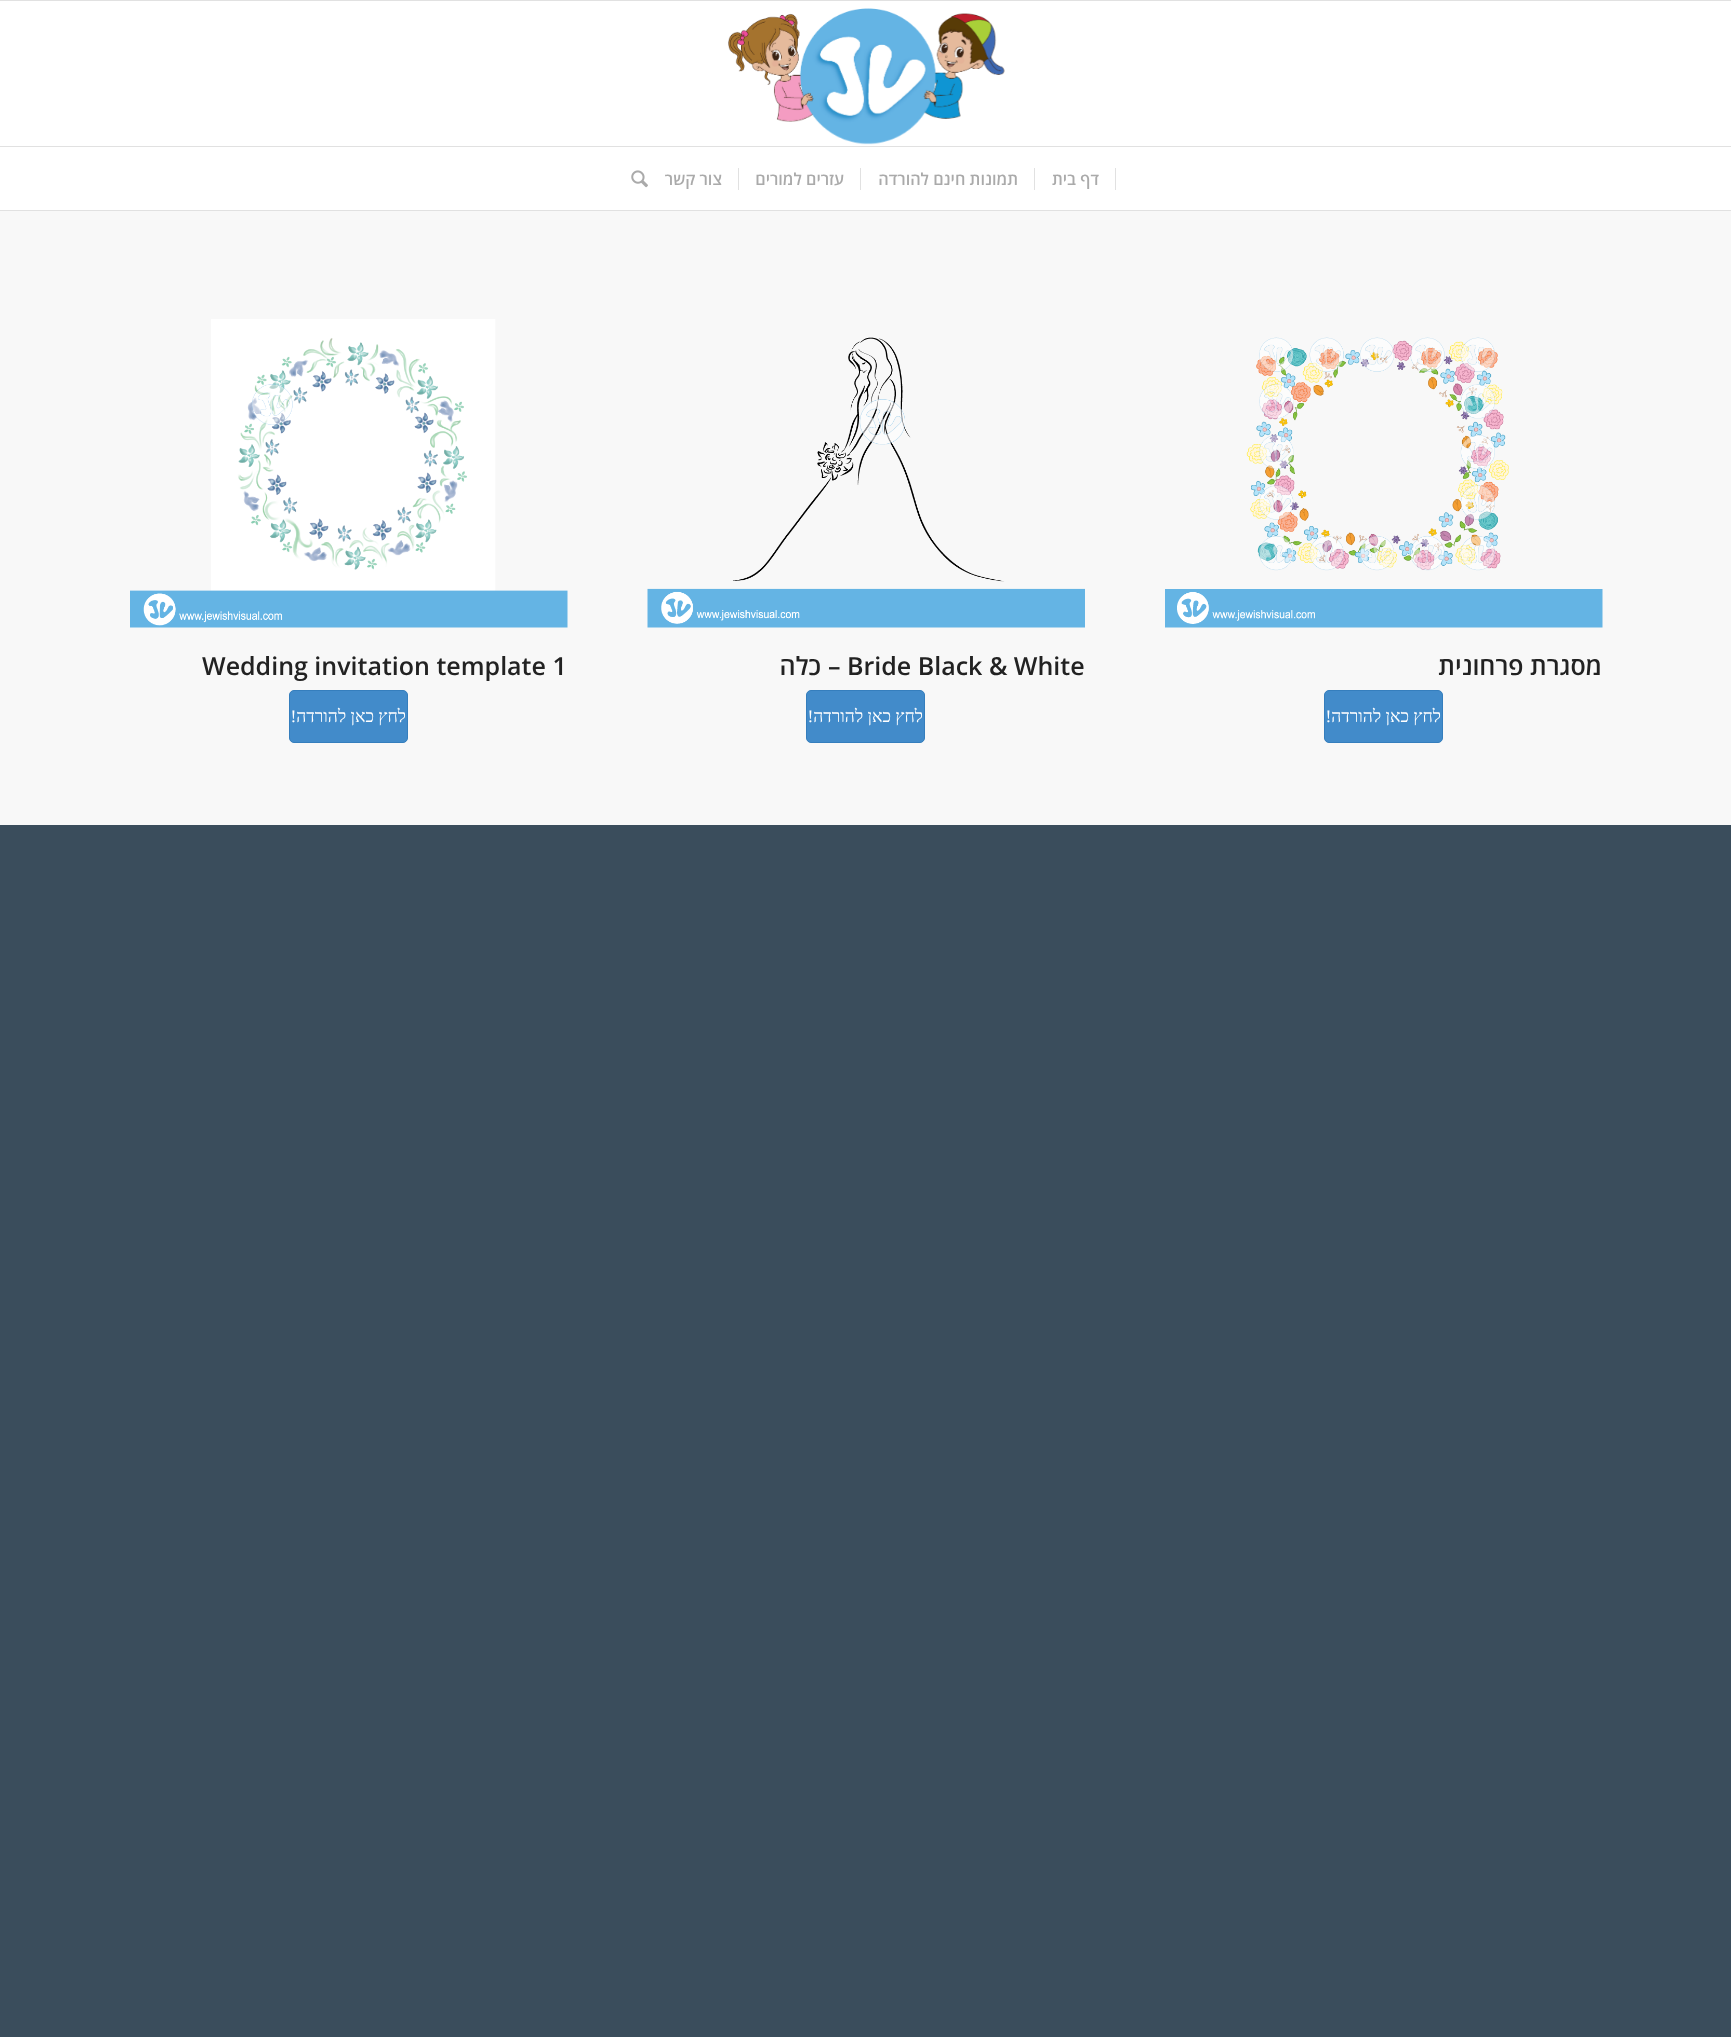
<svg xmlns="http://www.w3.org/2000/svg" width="1731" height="2037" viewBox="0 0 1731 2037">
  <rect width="100%" height="100%" fill="#3a4d5c"/>
  <rect x="0" y="0" width="1731" height="1" fill="#e1e1e1"/>
  <rect x="0" y="210" width="1731" height="1" fill="#e1e1e1"/>
  <rect x="0" y="1" width="1731" height="209" fill="#ffffff"/>
  <image x="728" y="8" width="277" height="137" href="img1.png"/>
  <rect x="0" y="146" width="1731" height="1" fill="#e1e1e1"/>
  <text x="1099" y="185" font-family="Open Sans" font-size="16.25" font-weight="600" direction="rtl" fill="#aaaaaa">דף בית</text>
  <rect x="1115" y="168" width="1" height="22" fill="#e1e1e1"/>
  <text x="1018" y="185" font-family="Open Sans" font-size="16.25" font-weight="600" direction="rtl" fill="#aaaaaa">תמונות חינם להורדה</text>
  <rect x="1034" y="168" width="1" height="22" fill="#e1e1e1"/>
  <text x="844" y="185" font-family="Open Sans" font-size="16.25" font-weight="600" direction="rtl" fill="#aaaaaa">עזרים למורים</text>
  <rect x="860" y="168" width="1" height="22" fill="#e1e1e1"/>
  <text x="722" y="185" font-family="Open Sans" font-size="16.25" font-weight="600" direction="rtl" fill="#aaaaaa">צור קשר</text>
  <rect x="738" y="168" width="1" height="22" fill="#e1e1e1"/>
  <image x="631" y="170" width="17" height="18" href="img2.png"/>
  <rect x="0" y="211" width="1731" height="614" fill="#f8f8f8"/>
  <image x="1165" y="337" width="438" height="291" href="img3.png"/>
  <text x="1602" y="675" font-family="Open Sans" font-size="25" font-weight="600" direction="rtl" fill="#222222">מסגרת פרחונית</text>
  <rect x="1324.5" y="690.5" width="118" height="52" rx="4.5" fill="#428bca" stroke="#357ebd"/>
  <text x="1441" y="722" font-family="Liberation Serif" font-size="17.5" direction="rtl" fill="#ffffff">לחץ כאן להורדה!</text>
  <image x="647" y="337" width="438" height="291" href="img4.png"/>
  <text x="828" y="675" font-family="Open Sans" font-size="25" font-weight="600" fill="#222222">– Bride Black &amp; White</text>
  <text x="821" y="675" font-family="Open Sans" font-size="25" font-weight="600" direction="rtl" fill="#222222">כלה</text>
  <rect x="806.5" y="690.5" width="118" height="52" rx="4.5" fill="#428bca" stroke="#357ebd"/>
  <text x="923" y="722" font-family="Liberation Serif" font-size="17.5" direction="rtl" fill="#ffffff">לחץ כאן להורדה!</text>
  <image x="130" y="319" width="438" height="309" href="img5.png"/>
  <text x="202" y="675" font-family="Open Sans" font-size="25" font-weight="600" fill="#222222">Wedding invitation template 1</text>
  <rect x="289.5" y="690.5" width="118" height="52" rx="4.5" fill="#428bca" stroke="#357ebd"/>
  <text x="406" y="722" font-family="Liberation Serif" font-size="17.5" direction="rtl" fill="#ffffff">לחץ כאן להורדה!</text>
</svg>
